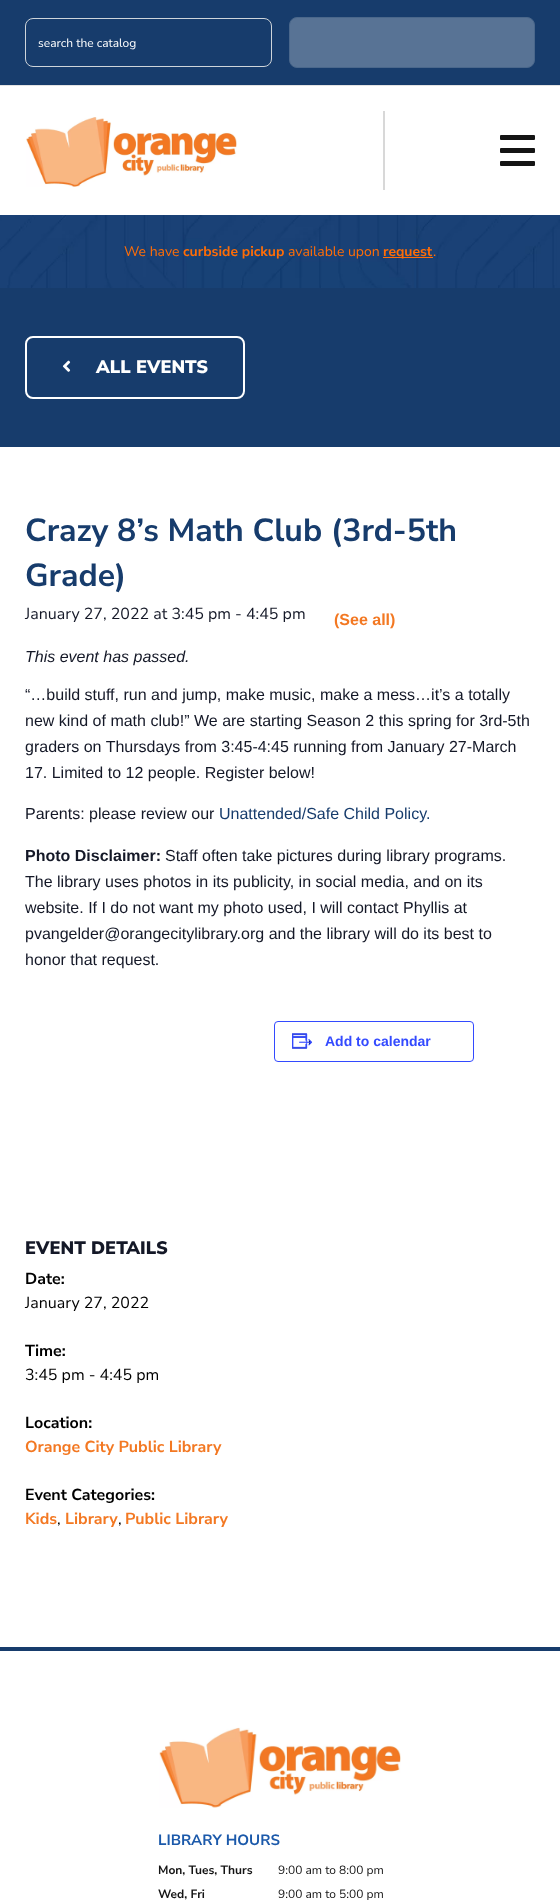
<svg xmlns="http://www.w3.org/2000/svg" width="560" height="1900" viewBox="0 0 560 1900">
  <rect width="100%" height="100%" fill="#ffffff"/>
  <rect x="0" y="0" width="560" height="85" fill="#173c6c"/>
  <rect x="0" y="85" width="560" height="1" fill="#e3e3e3"/>
  <rect x="25.5" y="18.5" width="246" height="48" rx="7.5" fill="none" stroke="#ced4da"/>
  <text x="38" y="47" font-family="Nunito Sans" font-size="12" fill="#ffffff">search the catalog</text>
  <rect x="289.5" y="17.5" width="245" height="50" rx="7.5" fill="#587395" stroke="#4a678b"/>
  <rect x="383" y="111" width="2" height="79" fill="#d8d8d8"/>
  <image x="26" y="117" width="211" height="70" href="img1.png"/>
  <rect x="500" y="135" width="35" height="5" rx="1" fill="#141414"/>
  <rect x="500" y="148" width="35" height="5" rx="1" fill="#141414"/>
  <rect x="500" y="161" width="35" height="5" rx="1" fill="#141414"/>
  <image x="0" y="215" width="560" height="73" href="img2.png"/>
  <text x="124" y="256" font-family="Nunito Sans" font-size="14" fill="#ff6d07">We have</text>
  <text x="183" y="256" font-family="Nunito Sans" font-size="14" font-weight="bold" fill="#ff6d07">curbside pickup</text>
  <text x="288" y="256" font-family="Nunito Sans" font-size="14" fill="#ff6d07">available upon</text>
  <rect x="383" y="257" width="50" height="1" fill="#ff6d07"/>
  <text x="383" y="256" font-family="Nunito Sans" font-size="14" font-weight="bold" fill="#ff6d07">request</text>
  <text x="433" y="256" font-family="Nunito Sans" font-size="14" fill="#ff6d07">.</text>
  <rect x="0" y="288" width="560" height="159" fill="#173c6c"/>
  <rect x="26" y="337" width="218" height="61" rx="7" fill="none" stroke="#ffffff" stroke-width="2"/>
  <image x="62" y="360" width="9" height="12" href="img3.png"/>
  <text x="96" y="373" font-family="Nunito Sans" font-size="18" font-weight="900" fill="#ffffff">ALL EVENTS</text>
  <text x="25" y="541" font-family="Nunito Sans" font-size="32" font-weight="bold" fill="#173c6c">Crazy 8’s Math Club (3rd-5th</text>
  <text x="25" y="586" font-family="Nunito Sans" font-size="32" font-weight="bold" fill="#173c6c">Grade)</text>
  <text x="25" y="619" font-family="Nunito Sans" font-size="16" fill="#141827">January 27, 2022 at 3:45 pm - 4:45 pm</text>
  <text x="334" y="625" font-family="Liberation Sans" font-size="16" font-weight="bold" fill="#f37822">(See all)</text>
  <text x="25" y="662" font-family="Liberation Sans" font-size="16" font-style="italic" fill="#141827">This event has passed.</text>
  <text x="25" y="700" font-family="Liberation Sans" font-size="16" fill="#141827">“…build stuff, run and jump, make music, make a mess…it’s a totally</text>
  <text x="25" y="726" font-family="Liberation Sans" font-size="16" fill="#141827">new kind of math club!” We are starting Season 2 this spring for 3rd-5th</text>
  <text x="25" y="752" font-family="Liberation Sans" font-size="16" fill="#141827">graders on Thursdays from 3:45-4:45 running from January 27-March</text>
  <text x="25" y="778" font-family="Liberation Sans" font-size="16" fill="#141827">17. Limited to 12 people. Register below!</text>
  <text x="25" y="819" font-family="Liberation Sans" font-size="16" fill="#141827">Parents: please review our</text>
  <text x="219" y="819" font-family="Liberation Sans" font-size="16" fill="#173c6c">Unattended/Safe Child Policy.</text>
  <text x="25" y="861" font-family="Liberation Sans" font-size="16" font-weight="bold" fill="#141827">Photo Disclaimer:</text>
  <text x="165" y="861" font-family="Liberation Sans" font-size="16" fill="#141827">Staff often take pictures during library programs.</text>
  <text x="25" y="887" font-family="Liberation Sans" font-size="16" fill="#141827">The library uses photos in its publicity, in social media, and on its</text>
  <text x="25" y="913" font-family="Liberation Sans" font-size="16" fill="#141827">website. If I do not want my photo used, I will contact Phyllis at</text>
  <text x="25" y="939" font-family="Liberation Sans" font-size="16" fill="#141827">pvangelder@orangecitylibrary.org and the library will do its best to</text>
  <text x="25" y="965" font-family="Liberation Sans" font-size="16" fill="#141827">honor that request.</text>
  <rect x="274.5" y="1021.5" width="199" height="40" rx="3.5" fill="none" stroke="#334aff"/>
  <image x="292" y="1033" width="21" height="16" href="img4.png"/>
  <text x="325" y="1046" font-family="Liberation Sans" font-size="14" font-weight="bold" fill="#334aff">Add to calendar</text>
  <text x="25" y="1254" font-family="Nunito Sans" font-size="18" font-weight="900" fill="#141827">EVENT DETAILS</text>
  <text x="25" y="1284" font-family="Nunito Sans" font-size="16" font-weight="bold" fill="#000000">Date:</text>
  <text x="25" y="1308" font-family="Nunito Sans" font-size="16" fill="#000000">January 27, 2022</text>
  <text x="25" y="1356" font-family="Nunito Sans" font-size="16" font-weight="bold" fill="#000000">Time:</text>
  <text x="25" y="1380" font-family="Nunito Sans" font-size="16" fill="#000000">3:45 pm - 4:45 pm</text>
  <text x="25" y="1428" font-family="Nunito Sans" font-size="16" font-weight="bold" fill="#000000">Location:</text>
  <text x="25" y="1452" font-family="Nunito Sans" font-size="16" font-weight="bold" fill="#f37822">Orange City Public Library</text>
  <text x="25" y="1500" font-family="Nunito Sans" font-size="16" font-weight="bold" fill="#000000">Event Categories:</text>
  <text x="25" y="1524" font-family="Nunito Sans" font-size="16" font-weight="bold" fill="#f37822">Kids</text>
  <text x="57" y="1524" font-family="Nunito Sans" font-size="16" fill="#000000">,</text>
  <text x="65" y="1524" font-family="Nunito Sans" font-size="16" font-weight="bold" fill="#f37822">Library</text>
  <text x="118" y="1524" font-family="Nunito Sans" font-size="16" fill="#000000">,</text>
  <text x="125" y="1524" font-family="Nunito Sans" font-size="16" font-weight="bold" fill="#f37822">Public Library</text>
  <rect x="0" y="1647" width="560" height="4" fill="#173c6c"/>
  <image x="159" y="1727" width="242" height="81" href="img5.png"/>
  <text x="158" y="1845" font-family="Nunito Sans" font-size="15" font-weight="bold" fill="#1b59aa">LIBRARY HOURS</text>
  <text x="158" y="1874" font-family="Nunito Sans" font-size="12" font-weight="bold" fill="#141414">Mon, Tues, Thurs</text>
  <text x="278" y="1874" font-family="Nunito Sans" font-size="12" fill="#141414">9:00 am to 8:00 pm</text>
  <text x="158" y="1898" font-family="Nunito Sans" font-size="12" font-weight="bold" fill="#141414">Wed, Fri</text>
  <text x="278" y="1898" font-family="Nunito Sans" font-size="12" fill="#141414">9:00 am to 5:00 pm</text>
</svg>
